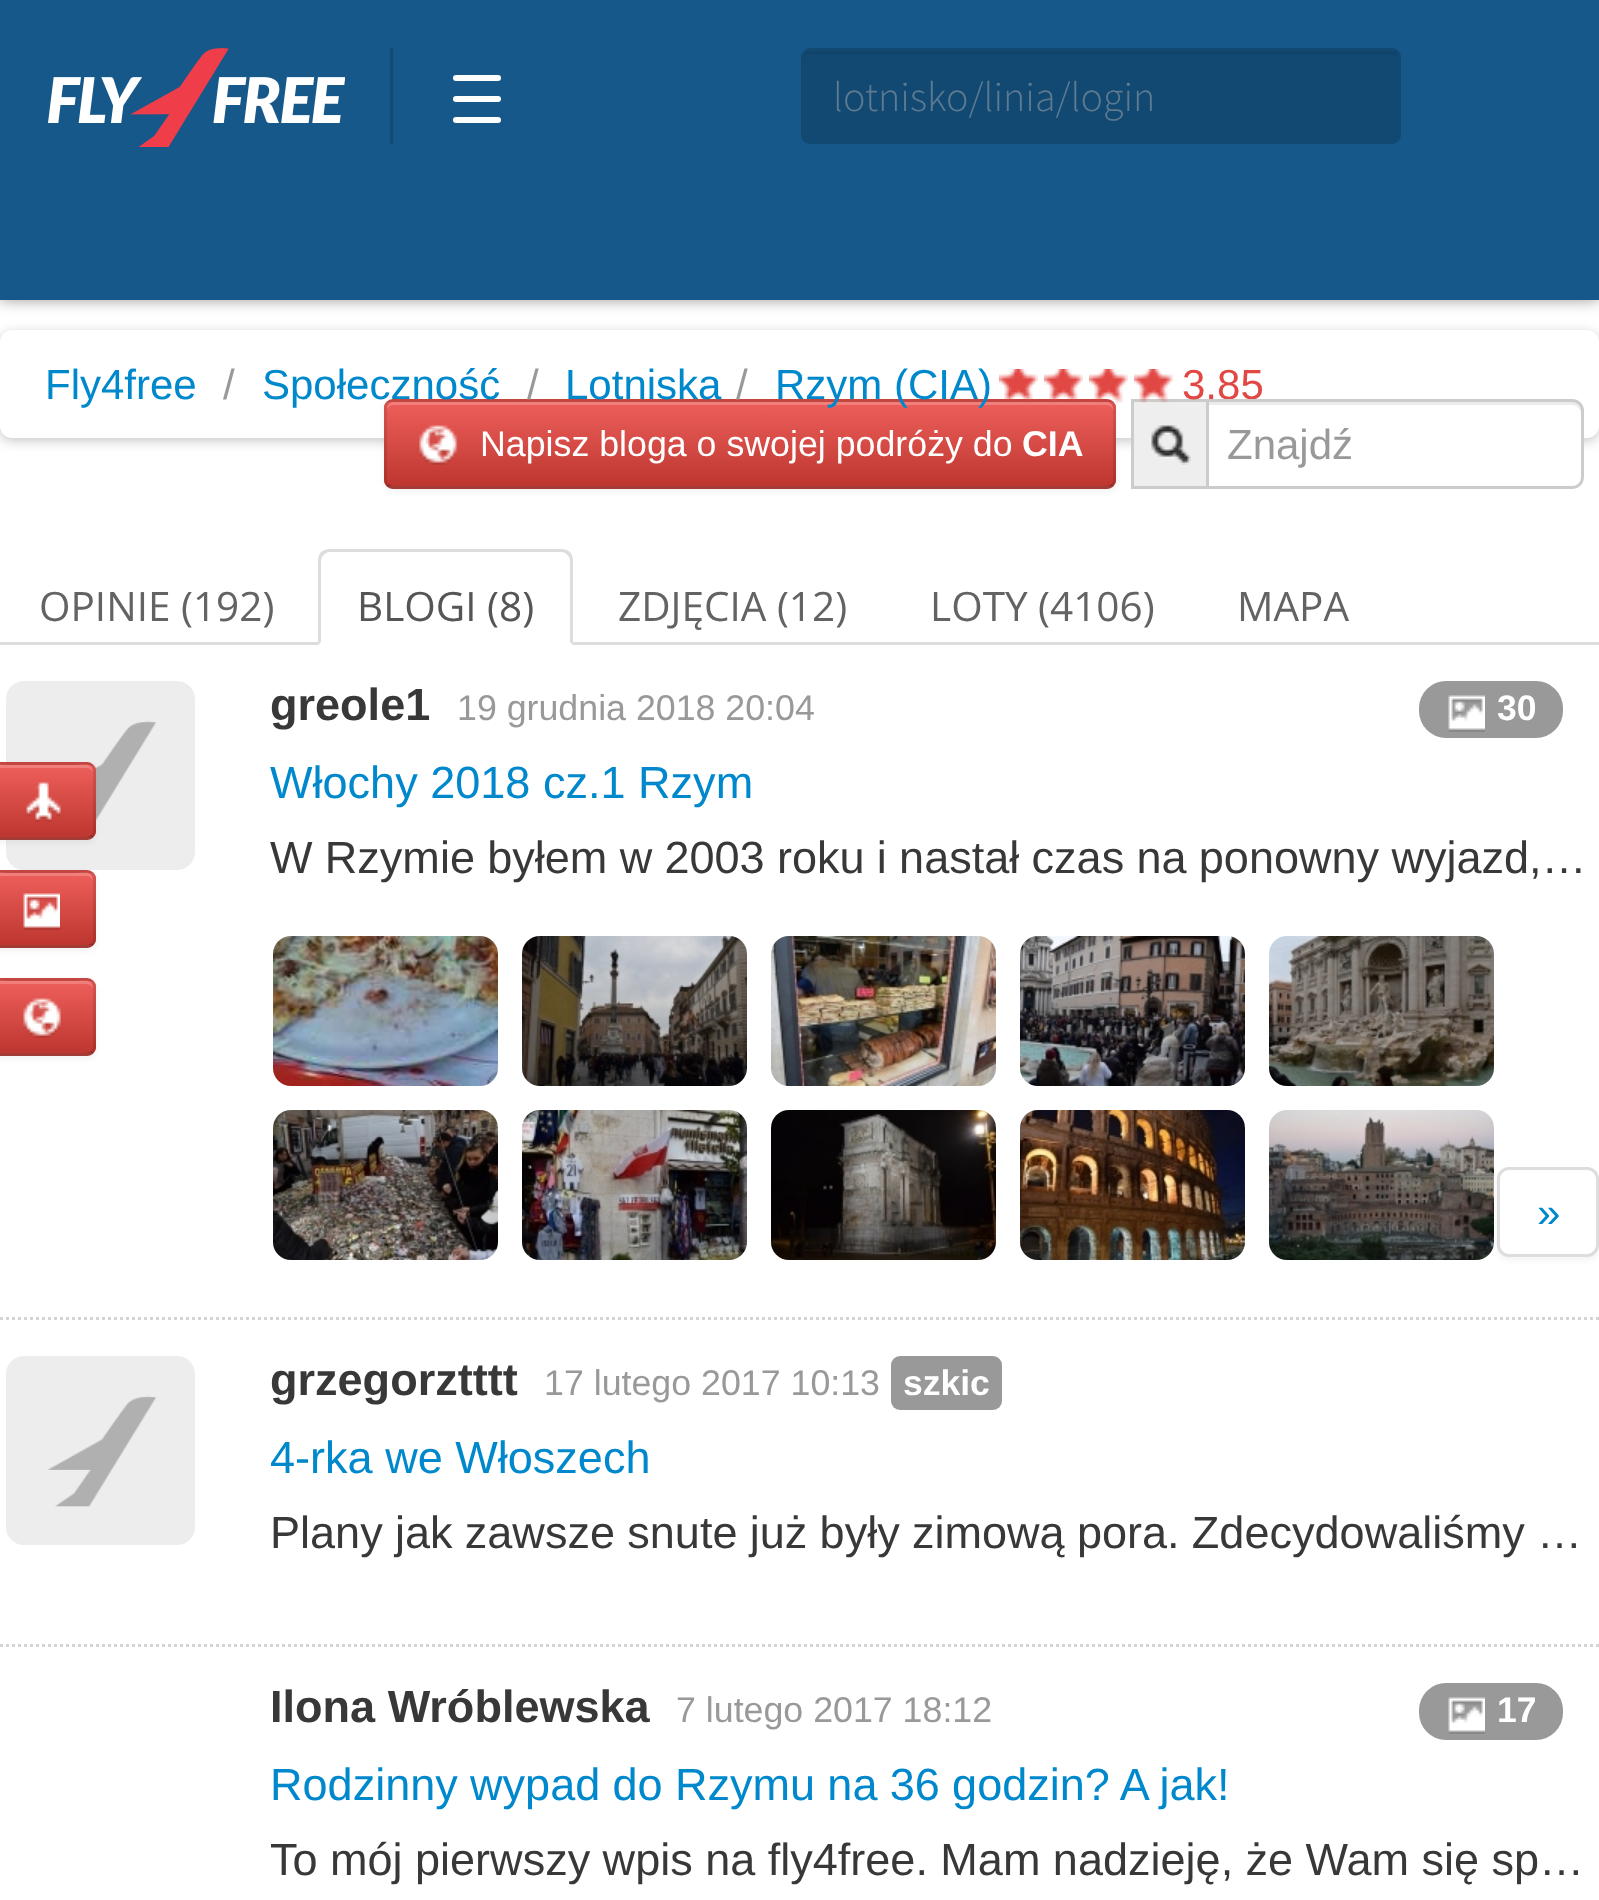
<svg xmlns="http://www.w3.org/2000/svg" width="1599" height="1900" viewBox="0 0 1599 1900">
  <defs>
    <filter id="blur1" x="-50%" y="-200%" width="200%" height="500%"><feGaussianBlur stdDeviation="7.5"/></filter>
    <clipPath id="clip1"><path d="M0 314H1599V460H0ZM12 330H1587C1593.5 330 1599 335.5 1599 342V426C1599 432.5 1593.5 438 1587 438H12C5.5 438 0 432.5 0 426V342C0 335.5 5.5 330 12 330Z" clip-rule="evenodd"/></clipPath>
    <filter id="blur2" x="-50%" y="-200%" width="200%" height="500%"><feGaussianBlur stdDeviation="6"/></filter>
    <filter id="blur3" x="-50%" y="-200%" width="200%" height="500%"><feGaussianBlur stdDeviation="3"/></filter>
    <clipPath id="clip2"><rect x="384" y="399" width="732" height="90" rx="9"/></clipPath>
    <linearGradient id="g1" gradientUnits="userSpaceOnUse" x1="750" y1="402" x2="750" y2="486"><stop offset="0" stop-color="#ee5f5b"/><stop offset="1" stop-color="#bd362f"/></linearGradient>
    <clipPath id="clip3"><rect x="-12" y="762" width="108" height="78" rx="9"/></clipPath>
    <linearGradient id="g2" gradientUnits="userSpaceOnUse" x1="42" y1="765" x2="42" y2="837"><stop offset="0" stop-color="#ee5f5b"/><stop offset="1" stop-color="#bd362f"/></linearGradient>
    <clipPath id="clip4"><rect x="-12" y="870" width="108" height="78" rx="9"/></clipPath>
    <linearGradient id="g3" gradientUnits="userSpaceOnUse" x1="42" y1="873" x2="42" y2="945"><stop offset="0" stop-color="#ee5f5b"/><stop offset="1" stop-color="#bd362f"/></linearGradient>
    <clipPath id="clip5"><rect x="-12" y="978" width="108" height="78" rx="9"/></clipPath>
    <linearGradient id="g4" gradientUnits="userSpaceOnUse" x1="42" y1="981" x2="42" y2="1053"><stop offset="0" stop-color="#ee5f5b"/><stop offset="1" stop-color="#bd362f"/></linearGradient>
  </defs>
  <rect width="100%" height="100%" fill="#ffffff"/>
  <rect x="0" y="0" width="1599" height="300" fill="#000000" fill-opacity="0.4" filter="url(#blur1)"/>
  <rect x="0" y="0" width="1599" height="300" fill="#17588a"/>
  <image x="48" y="48" width="297" height="99" href="img1.png"/>
  <rect x="390" y="48" width="3" height="96" fill="#134a74"/>
  <rect x="453" y="117" width="48" height="6" rx="3" fill="#ffffff"/>
  <rect x="453" y="75" width="48" height="6" rx="3" fill="#ffffff"/>
  <rect x="453" y="96" width="48" height="6" rx="3" fill="#ffffff"/>
  <rect x="801" y="48" width="600" height="96" rx="9" fill="#124973"/>
  <path d="M810 54H1392C1395 54 1398 57 1398 60C1398 56 1397 51 1392 51H810C805 51 804 56 804 60C804 57 807 54 810 54Z" fill="#11446a"/>
  <text x="833" y="111" font-family="Source Sans Pro" font-size="42" font-weight="300" fill="#5e7a8f">lotnisko/linia/login</text>
  <g clip-path="url(#clip1)">
    <rect x="0" y="333" width="1599" height="108" rx="12" fill="#000000" fill-opacity="0.22" filter="url(#blur2)"/>
  </g>
  <text x="45" y="399" font-family="Liberation Sans" font-size="42" fill="#0088cc">Fly4free</text>
  <text x="223" y="399" font-family="Liberation Sans" font-size="42" fill="#999999">/</text>
  <rect x="384" y="402" width="732" height="90" rx="9" fill="#000000" fill-opacity="0.05" filter="url(#blur3)"/>
  <rect x="384" y="399" width="732" height="90" rx="9" fill="#da4f49"/>
  <g clip-path="url(#clip2)">
    <rect x="384" y="402" width="732" height="84" fill="url(#g1)"/>
  </g>
  <path d="M393 405H1107C1110 405 1113 408 1113 411V408C1113 405 1110 402 1107 402H393C390 402 387 405 387 408V411C387 408 390 405 393 405Z" fill="#ffffff" fill-opacity="0.2"/>
  <path d="M1112.5 485.5C1111 486.5 1109 487.5 1107 487.5H393C391 487.5 389 486.5 387.5 485.5" fill="none" stroke="#000000" stroke-opacity="0.25" stroke-width="3"/>
  <path d="M387.5 485.5C386.5 484 385.5 482 385.5 480V408C385.5 406 386.5 404 387.5 402.5C389 401.5 391 400.5 393 400.5H1107C1109 400.5 1111 401.5 1112.5 402.5C1113.5 404 1114.5 406 1114.5 408V480C1114.5 482 1113.5 484 1112.5 485.5" fill="none" stroke="#000000" stroke-opacity="0.1" stroke-width="3"/>
  <text x="262" y="399" font-family="Liberation Sans" font-size="42" fill="#0088cc">Społeczność</text>
  <text x="527" y="399" font-family="Liberation Sans" font-size="42" fill="#999999">/</text>
  <text x="565" y="399" font-family="Liberation Sans" font-size="42" fill="#0088cc">Lotniska</text>
  <text x="736" y="399" font-family="Liberation Sans" font-size="42" fill="#999999">/</text>
  <text x="775" y="399" font-family="Liberation Sans" font-size="42" fill="#0088cc">Rzym (CIA)</text>
  <image x="999" y="369" width="39" height="34" href="img2.png"/>
  <image x="1044" y="369" width="39" height="34" href="img3.png"/>
  <image x="1089" y="369" width="39" height="34" href="img4.png"/>
  <rect x="1132.5" y="400.5" width="75" height="87" fill="#eeeeee" stroke="#cccccc" stroke-width="3"/>
  <image x="1134" y="369" width="39" height="34" href="img5.png"/>
  <text x="1182" y="399" font-family="Liberation Sans" font-size="42" fill="#e14743">3,85</text>
  <image x="419" y="425" width="39" height="40" href="img6.png"/>
  <text x="480" y="456" font-family="Liberation Sans" font-size="35.75" fill="#ffffff">Napisz bloga o swojej podróży do</text>
  <text x="1022" y="456" font-family="Liberation Sans" font-size="35.75" font-weight="bold" fill="#ffffff">CIA</text>
  <image x="1151" y="425" width="40" height="40" href="img7.png"/>
  <path d="M1206 399H1572C1578.5 399 1584 404.5 1584 411V477C1584 483.5 1578.5 489 1572 489H1206Z" fill="#ffffff"/>
  <path d="M1209 405H1572C1577 405 1581 409 1581 414V411C1581 406 1577 402 1572 402H1209Z" fill="#ececec"/>
  <path d="M1207.5 400.5H1572C1578 400.5 1582.5 405 1582.5 411V477C1582.5 483 1578 487.5 1572 487.5H1207.5Z" fill="none" stroke="#cccccc" stroke-width="3"/>
  <text x="1227" y="459" font-family="Liberation Sans" font-size="42" fill="#999999">Znajdź</text>
  <rect x="0" y="642" width="1599" height="3" fill="#dddddd"/>
  <text x="39" y="621" font-family="Open Sans" font-size="40.5" fill="#636363">OPINIE (192)</text>
  <path d="M330 549H561C567.5 549 573 554.5 573 561V645H318V561C318 554.5 323.5 549 330 549Z" fill="#ffffff"/>
  <path d="M330 549C326 549 324 550 321 552L324 555C325 553 328 552 330 552H561C564 552 566 553 567 555L570 552C568 550 564 549 561 549Z" fill="#dddddd"/>
  <path d="M573 645V561C573 558 572 554 570 552L567 555C569 556 570 558 570 561V642Z" fill="#dddddd"/>
  <path d="M318 645L321 642V561C321 558 322 556 324 555L321 552C319 554 318 558 318 561Z" fill="#dddddd"/>
  <text x="357" y="621" font-family="Open Sans" font-size="40.5" fill="#555555">BLOGI (8)</text>
  <text x="618" y="621" font-family="Open Sans" font-size="40.5" fill="#636363">ZDJĘCIA (12)</text>
  <text x="930" y="621" font-family="Open Sans" font-size="40.5" fill="#636363">LOTY (4106)</text>
  <text x="1237" y="621" font-family="Open Sans" font-size="40.5" fill="#636363">MAPA</text>
  <path d="M0 1318.5H1599" fill="none" stroke="#d3d5d0" stroke-width="3" stroke-dasharray="3 3"/>
  <image x="6" y="681" width="189" height="189" href="img8.png"/>
  <text x="270" y="720" font-family="Liberation Sans" font-size="45.05" font-weight="bold" fill="#383838">greole1</text>
  <text x="457" y="720" font-family="Liberation Sans" font-size="35.75" fill="#999999">19 grudnia 2018 20:04</text>
  <rect x="1419" y="681" width="144" height="57" rx="27" fill="#999999"/>
  <image x="1448" y="695" width="37" height="37" href="img9.png"/>
  <text x="1497" y="720" font-family="Liberation Sans" font-size="35.5" font-weight="bold" fill="#ffffff">30</text>
  <text x="270" y="798" font-family="Liberation Sans" font-size="45.05" fill="#0088cc">Włochy 2018 cz.1 Rzym</text>
  <text x="270" y="873" word-spacing="-0.25" font-family="Liberation Sans" font-size="45.05" fill="#383838">W Rzymie byłem w 2003 roku i nastał czas na ponowny wyjazd,…</text>
  <image x="273" y="936" width="225" height="150" href="img10.png"/>
  <image x="522" y="936" width="225" height="150" href="img11.png"/>
  <image x="771" y="936" width="225" height="150" href="img12.png"/>
  <image x="1020" y="936" width="225" height="150" href="img13.png"/>
  <image x="1269" y="936" width="225" height="150" href="img14.png"/>
  <image x="273" y="1110" width="225" height="150" href="img15.png"/>
  <image x="522" y="1110" width="225" height="150" href="img16.png"/>
  <image x="771" y="1110" width="225" height="150" href="img17.png"/>
  <image x="1020" y="1110" width="225" height="150" href="img18.png"/>
  <rect x="1497" y="1170" width="102" height="90" rx="12" fill="#000000" fill-opacity="0.05" filter="url(#blur3)"/>
  <image x="1269" y="1110" width="225" height="150" href="img19.png"/>
  <rect x="1498.5" y="1168.5" width="99" height="87" rx="10.5" fill="#ffffff" stroke="#dddddd" stroke-width="3"/>
  <text x="1537" y="1227" font-family="Liberation Sans" font-size="42" fill="#0088cc">»</text>
  <path d="M0 1645.5H1599" fill="none" stroke="#d3d5d0" stroke-width="3" stroke-dasharray="3 3"/>
  <image x="6" y="1356" width="189" height="189" href="img8.png"/>
  <text x="270" y="1395" font-family="Liberation Sans" font-size="45.05" font-weight="bold" fill="#383838">grzegorztttt</text>
  <text x="544" y="1395" font-family="Liberation Sans" font-size="35.75" fill="#999999">17 lutego 2017 10:13</text>
  <rect x="891" y="1356" width="111" height="54" rx="9" fill="#999999"/>
  <text x="903" y="1395" font-family="Liberation Sans" font-size="35.5" font-weight="bold" fill="#ffffff">szkic</text>
  <text x="270" y="1473" font-family="Liberation Sans" font-size="45.05" fill="#0088cc">4-rka we Włoszech</text>
  <text x="270" y="1548" word-spacing="-0.25" font-family="Liberation Sans" font-size="45.05" fill="#383838">Plany jak zawsze snute już były zimową pora. Zdecydowaliśmy …</text>
  <text x="270" y="1722" font-family="Liberation Sans" font-size="45.05" font-weight="bold" fill="#383838">Ilona Wróblewska</text>
  <text x="676" y="1722" font-family="Liberation Sans" font-size="35.75" fill="#999999">7 lutego 2017 18:12</text>
  <rect x="1419" y="1683" width="144" height="57" rx="27" fill="#999999"/>
  <image x="1448" y="1697" width="37" height="37" href="img9.png"/>
  <text x="1497" y="1722" font-family="Liberation Sans" font-size="35.5" font-weight="bold" fill="#ffffff">17</text>
  <text x="270" y="1800" word-spacing="-0.25" font-family="Liberation Sans" font-size="45.05" fill="#0088cc">Rodzinny wypad do Rzymu na 36 godzin? A jak!</text>
  <text x="270" y="1875" word-spacing="-0.1" font-family="Liberation Sans" font-size="45.05" fill="#383838">To mój pierwszy wpis na fly4free. Mam nadzieję, że Wam się sp…</text>
  <rect x="-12" y="765" width="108" height="78" rx="9" fill="#000000" fill-opacity="0.05" filter="url(#blur3)"/>
  <rect x="-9" y="762" width="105" height="78" rx="9" fill="#da4f49"/>
  <g clip-path="url(#clip3)">
    <rect x="0" y="765" width="96" height="72" fill="url(#g2)"/>
  </g>
  <path d="M-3 768H87C90 768 93 771 93 774C93 761 84 765 72 765H12C0 765-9 761-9 774C-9 771-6 768-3 768Z" fill="#ffffff" fill-opacity="0.2"/>
  <path d="M92.5 836.5C91 837.5 89 838.5 87 838.5H-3C-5 838.5-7 837.5-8.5 836.5" fill="none" stroke="#000000" stroke-opacity="0.25" stroke-width="3"/>
  <path d="M-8.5 836.5C-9.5 835-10.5 833-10.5 831V771C-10.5 769-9.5 767-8.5 765.5C-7 764.5-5 763.5-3 763.5H87C89 763.5 91 764.5 92.5 765.5C93.5 767 94.5 769 94.5 771V831C94.5 833 93.5 835 92.5 836.5" fill="none" stroke="#000000" stroke-opacity="0.1" stroke-width="3"/>
  <image x="26" y="782" width="35" height="40" href="img20.png"/>
  <rect x="-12" y="873" width="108" height="78" rx="9" fill="#000000" fill-opacity="0.05" filter="url(#blur3)"/>
  <rect x="-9" y="870" width="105" height="78" rx="9" fill="#da4f49"/>
  <g clip-path="url(#clip4)">
    <rect x="0" y="873" width="96" height="72" fill="url(#g3)"/>
  </g>
  <path d="M-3 876H87C90 876 93 879 93 882C93 869 84 873 72 873H12C0 873-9 869-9 882C-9 879-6 876-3 876Z" fill="#ffffff" fill-opacity="0.2"/>
  <path d="M92.5 944.5C91 945.5 89 946.5 87 946.5H-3C-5 946.5-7 945.5-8.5 944.5" fill="none" stroke="#000000" stroke-opacity="0.25" stroke-width="3"/>
  <path d="M-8.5 944.5C-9.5 943-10.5 941-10.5 939V879C-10.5 877-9.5 875-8.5 873.5C-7 872.5-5 871.5-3 871.5H87C89 871.5 91 872.5 92.5 873.5C93.5 875 94.5 877 94.5 879V939C94.5 941 93.5 943 92.5 944.5" fill="none" stroke="#000000" stroke-opacity="0.1" stroke-width="3"/>
  <image x="23" y="893" width="37" height="37" href="img21.png"/>
  <rect x="-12" y="981" width="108" height="78" rx="9" fill="#000000" fill-opacity="0.05" filter="url(#blur3)"/>
  <rect x="-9" y="978" width="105" height="78" rx="9" fill="#da4f49"/>
  <g clip-path="url(#clip5)">
    <rect x="0" y="981" width="96" height="72" fill="url(#g4)"/>
  </g>
  <path d="M-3 984H87C90 984 93 987 93 990C93 977 84 981 72 981H12C0 981-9 977-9 990C-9 987-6 984-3 984Z" fill="#ffffff" fill-opacity="0.2"/>
  <path d="M92.5 1052.5C91 1053.5 89 1054.5 87 1054.5H-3C-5 1054.5-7 1053.5-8.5 1052.5" fill="none" stroke="#000000" stroke-opacity="0.25" stroke-width="3"/>
  <path d="M-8.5 1052.5C-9.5 1051-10.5 1049-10.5 1047V987C-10.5 985-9.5 983-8.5 981.5C-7 980.5-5 979.5-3 979.5H87C89 979.5 91 980.5 92.5 981.5C93.5 983 94.5 985 94.5 987V1047C94.5 1049 93.5 1051 92.5 1052.5" fill="none" stroke="#000000" stroke-opacity="0.1" stroke-width="3"/>
  <image x="23" y="998" width="38" height="40" href="img22.png"/>
</svg>
